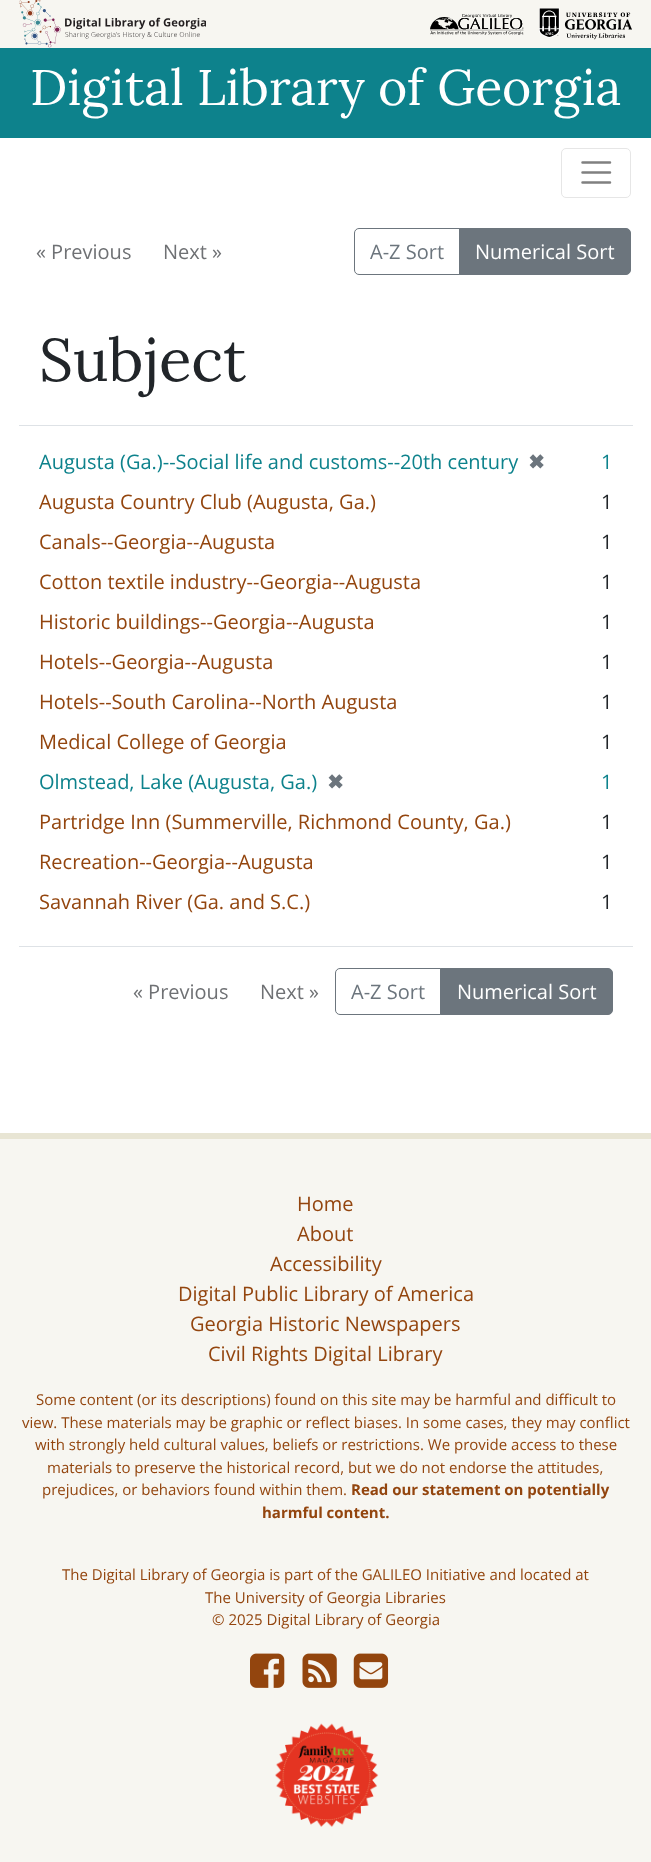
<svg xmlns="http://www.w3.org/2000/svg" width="651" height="1862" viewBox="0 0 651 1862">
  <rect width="100%" height="100%" fill="#ffffff"/>
  <rect x="0" y="0" width="651" height="48" fill="#f7f6f1"/>
  <image x="19" y="0" width="187" height="48" href="img1.png"/>
  <image x="430" y="14" width="94" height="21" href="img2.png"/>
  <image x="539" y="8" width="93" height="32" href="img3.png"/>
  <rect x="0" y="48" width="651" height="90" fill="#0d828c"/>
  <text x="30" y="105" font-family="Lora" font-size="50" fill="#ffffff">Digital Library of Georgia</text>
  <rect x="561.5" y="148.5" width="69" height="49" rx="4.5" fill="none" stroke="#e6e6e6"/>
  <path d="M582.5 162.5H610M582.5 172.5H610M582.5 182.5H610" fill="none" stroke="#808080" stroke-width="2.5" stroke-linecap="round"/>
  <text x="36" y="259" font-family="Open Sans" font-size="20" fill="#6f7174">« Previous</text>
  <text x="163" y="259" font-family="Open Sans" font-size="20" fill="#6f7174">Next »</text>
  <path d="M359 228.5H459.5V274.5H359C356.5 274.5 354.5 272.5 354.5 270V233C354.5 230.5 356.5 228.5 359 228.5Z" fill="none" stroke="#6c757d"/>
  <text x="370" y="259" font-family="Open Sans" font-size="20" fill="#6c757d">A-Z Sort</text>
  <path d="M459.5 228.5H626C628.5 228.5 630.5 230.5 630.5 233V270C630.5 272.5 628.5 274.5 626 274.5H459.5Z" fill="#6c757d" stroke="#6c757d"/>
  <text x="475" y="259" font-family="Open Sans" font-size="20" fill="#ffffff">Numerical Sort</text>
  <rect x="19" y="425" width="614" height="1" fill="#dee2e6"/>
  <text x="39" y="381" font-family="Lora" font-size="60" fill="#212529">Subject</text>
  <text x="39" y="469" font-family="Open Sans" font-size="20" fill="#0d828c">Augusta (Ga.)--Social life and customs--20th century</text>
  <text x="528" y="469" font-family="DejaVu Sans" font-size="20" font-weight="bold" fill="#6c757d">✖</text>
  <text x="601" y="469" font-family="Open Sans" font-size="20" fill="#0d828c">1</text>
  <text x="39" y="509" font-family="Open Sans" font-size="20" fill="#93450e">Augusta Country Club (Augusta, Ga.)</text>
  <text x="601" y="509" font-family="Open Sans" font-size="20" fill="#212529">1</text>
  <text x="39" y="549" font-family="Open Sans" font-size="20" fill="#93450e">Canals--Georgia--Augusta</text>
  <text x="601" y="549" font-family="Open Sans" font-size="20" fill="#212529">1</text>
  <text x="39" y="589" font-family="Open Sans" font-size="20" fill="#93450e">Cotton textile industry--Georgia--Augusta</text>
  <text x="601" y="589" font-family="Open Sans" font-size="20" fill="#212529">1</text>
  <text x="39" y="629" font-family="Open Sans" font-size="20" fill="#93450e">Historic buildings--Georgia--Augusta</text>
  <text x="601" y="629" font-family="Open Sans" font-size="20" fill="#212529">1</text>
  <text x="39" y="669" font-family="Open Sans" font-size="20" fill="#93450e">Hotels--Georgia--Augusta</text>
  <text x="601" y="669" font-family="Open Sans" font-size="20" fill="#212529">1</text>
  <text x="39" y="709" font-family="Open Sans" font-size="20" fill="#93450e">Hotels--South Carolina--North Augusta</text>
  <text x="601" y="709" font-family="Open Sans" font-size="20" fill="#212529">1</text>
  <text x="39" y="749" font-family="Open Sans" font-size="20" fill="#93450e">Medical College of Georgia</text>
  <text x="601" y="749" font-family="Open Sans" font-size="20" fill="#212529">1</text>
  <text x="39" y="789" font-family="Open Sans" font-size="20" fill="#0d828c">Olmstead, Lake (Augusta, Ga.)</text>
  <text x="327" y="789" font-family="DejaVu Sans" font-size="20" font-weight="bold" fill="#6c757d">✖</text>
  <text x="601" y="789" font-family="Open Sans" font-size="20" fill="#0d828c">1</text>
  <text x="39" y="829" font-family="Open Sans" font-size="20" fill="#93450e">Partridge Inn (Summerville, Richmond County, Ga.)</text>
  <text x="601" y="829" font-family="Open Sans" font-size="20" fill="#212529">1</text>
  <text x="39" y="869" font-family="Open Sans" font-size="20" fill="#93450e">Recreation--Georgia--Augusta</text>
  <text x="601" y="869" font-family="Open Sans" font-size="20" fill="#212529">1</text>
  <text x="39" y="909" font-family="Open Sans" font-size="20" fill="#93450e">Savannah River (Ga. and S.C.)</text>
  <text x="601" y="909" font-family="Open Sans" font-size="20" fill="#212529">1</text>
  <rect x="19" y="946" width="614" height="1" fill="#dee2e6"/>
  <text x="133" y="999" font-family="Open Sans" font-size="20" fill="#6f7174">« Previous</text>
  <text x="260" y="999" font-family="Open Sans" font-size="20" fill="#6f7174">Next »</text>
  <path d="M340 968.5H440.5V1014.5H340C337.5 1014.5 335.5 1012.5 335.5 1010V973C335.5 970.5 337.5 968.5 340 968.5Z" fill="none" stroke="#6c757d"/>
  <text x="351" y="999" font-family="Open Sans" font-size="20" fill="#6c757d">A-Z Sort</text>
  <path d="M440.5 968.5H608C610.5 968.5 612.5 970.5 612.5 973V1010C612.5 1012.5 610.5 1014.5 608 1014.5H440.5Z" fill="#6c757d" stroke="#6c757d"/>
  <text x="457" y="999" font-family="Open Sans" font-size="20" fill="#ffffff">Numerical Sort</text>
  <rect x="0" y="1139" width="651" height="723" fill="#f7f6f1"/>
  <rect x="0" y="1133" width="651" height="6" fill="#e8e5d4"/>
  <text x="297" y="1211" font-family="Open Sans" font-size="20" fill="#93450e">Home</text>
  <text x="297" y="1241" font-family="Open Sans" font-size="20" fill="#93450e">About</text>
  <text x="270" y="1271" font-family="Open Sans" font-size="20" fill="#93450e">Accessibility</text>
  <text x="178" y="1301" font-family="Open Sans" font-size="20" fill="#93450e">Digital Public Library of America</text>
  <text x="190" y="1331" font-family="Open Sans" font-size="20" fill="#93450e">Georgia Historic Newspapers</text>
  <text x="208" y="1361" font-family="Open Sans" font-size="20" fill="#93450e">Civil Rights Digital Library</text>
  <text x="36" y="1405" font-family="Open Sans" font-size="15" fill="#93450e">Some content (or its descriptions) found on this site may be harmful and difficult to</text>
  <text x="22" y="1428" font-family="Open Sans" font-size="15" fill="#93450e">view. These materials may be graphic or reflect biases. In some cases, they may conflict</text>
  <text x="35" y="1450" font-family="Open Sans" font-size="15" fill="#93450e">with strongly held cultural values, beliefs or restrictions. We provide access to these</text>
  <text x="47" y="1473" font-family="Open Sans" font-size="15" fill="#93450e">materials to preserve the historical record, but we do not endorse the attitudes,</text>
  <text x="42" y="1495" font-family="Open Sans" font-size="15" fill="#93450e">prejudices, or behaviors found within them.</text>
  <text x="351" y="1495" font-family="Open Sans" font-size="15" font-weight="bold" fill="#93450e">Read our statement on potentially</text>
  <text x="262" y="1518" font-family="Open Sans" font-size="15" font-weight="bold" fill="#93450e">harmful content.</text>
  <text x="62" y="1580" font-family="Open Sans" font-size="15" fill="#93450e">The Digital Library of Georgia is part of the GALILEO Initiative and located at</text>
  <text x="205" y="1603" font-family="Open Sans" font-size="15" fill="#93450e">The University of Georgia Libraries</text>
  <text x="212" y="1625" font-family="Open Sans" font-size="15" fill="#93450e">© 2025 Digital Library of Georgia</text>
  <image x="250" y="1653" width="35" height="35" href="img4.png"/>
  <image x="302" y="1653" width="35" height="35" href="img5.png"/>
  <image x="353" y="1653" width="36" height="35" href="img6.png"/>
  <image x="275" y="1723" width="104" height="104" href="img7.png"/>
</svg>
